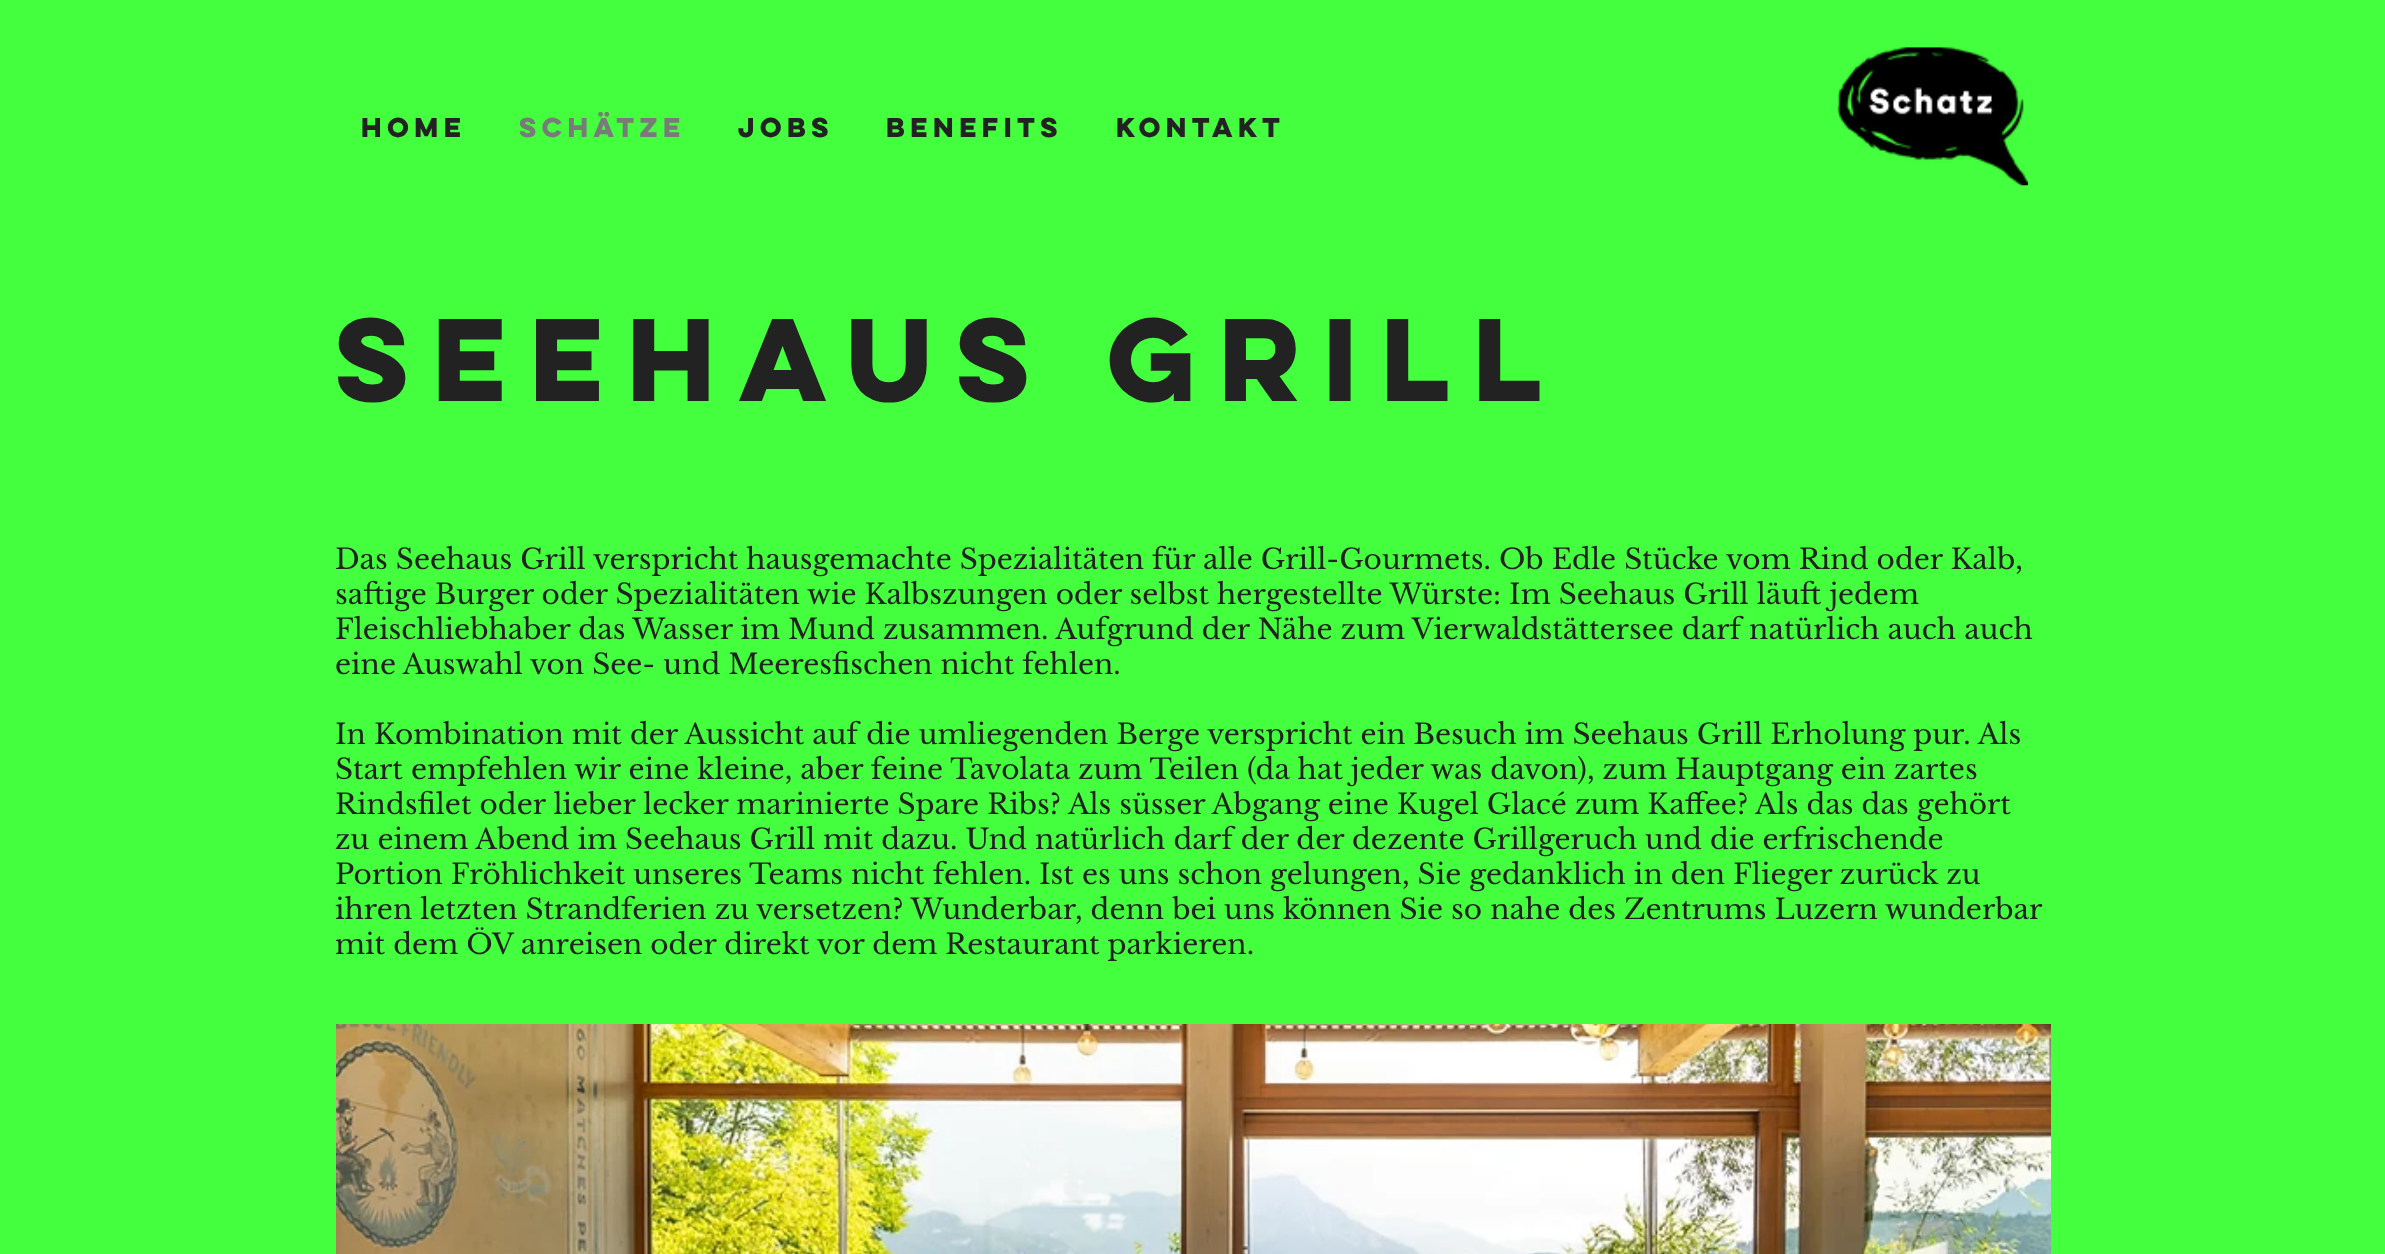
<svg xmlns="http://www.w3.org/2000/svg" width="2385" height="1254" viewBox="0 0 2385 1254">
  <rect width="100%" height="100%" fill="#44ff3d"/>
  <text x="361" y="137" font-family="'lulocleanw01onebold'" font-size="24.5" font-weight="bold" fill="#222222">Home</text>
  <text x="519" y="137" font-family="'lulocleanw01onebold'" font-size="24.5" font-weight="bold" fill="#7a7a7a">Schätze</text>
  <text x="738" y="137" font-family="'lulocleanw01onebold'" font-size="24.5" font-weight="bold" fill="#222222">Jobs</text>
  <text x="886" y="137" font-family="'lulocleanw01onebold'" font-size="24.5" font-weight="bold" fill="#222222">Benefits</text>
  <text x="1116" y="137" font-family="'lulocleanw01onebold'" font-size="24.5" font-weight="bold" fill="#222222">Kontakt</text>
  <image x="1837" y="47" width="192" height="139" href="img1.png"/>
  <text x="335" y="401" font-family="'lulocleanw01onebold'" font-size="105" font-weight="bold" fill="#222222">Seehaus Grill</text>
  <text x="335" y="569" font-family="Libre Baskerville" font-size="28" fill="#222222">Das Seehaus Grill verspricht hausgemachte Spezialitäten für alle Grill-Gourmets. Ob Edle Stücke vom Rind oder Kalb,</text>
  <text x="335" y="604" font-family="Libre Baskerville" font-size="28" fill="#222222">saftige Burger oder Spezialitäten wie Kalbszungen oder selbst hergestellte Würste: Im Seehaus Grill läuft jedem</text>
  <text x="335" y="639" font-family="Libre Baskerville" font-size="28" fill="#222222">Fleischliebhaber das Wasser im Mund zusammen. Aufgrund der Nähe zum Vierwaldstättersee darf natürlich auch auch</text>
  <text x="335" y="674" font-family="Libre Baskerville" font-size="28" fill="#222222">eine Auswahl von See- und Meeresfischen nicht fehlen.</text>
  <text x="335" y="744" font-family="Libre Baskerville" font-size="28" fill="#222222">In Kombination mit der Aussicht auf die umliegenden Berge verspricht ein Besuch im Seehaus Grill Erholung pur. Als</text>
  <text x="335" y="779" font-family="Libre Baskerville" font-size="28" fill="#222222">Start empfehlen wir eine kleine, aber feine Tavolata zum Teilen (da hat jeder was davon), zum Hauptgang ein zartes</text>
  <text x="335" y="814" font-family="Libre Baskerville" font-size="28" fill="#222222">Rindsfilet oder lieber lecker marinierte Spare Ribs? Als süsser Abgang eine Kugel Glacé zum Kaffee? Als das das gehört</text>
  <text x="335" y="849" font-family="Libre Baskerville" font-size="28" fill="#222222">zu einem Abend im Seehaus Grill mit dazu. Und natürlich darf der der dezente Grillgeruch und die erfrischende</text>
  <text x="335" y="884" font-family="Libre Baskerville" font-size="28" fill="#222222">Portion Fröhlichkeit unseres Teams nicht fehlen. Ist es uns schon gelungen, Sie gedanklich in den Flieger zurück zu</text>
  <text x="335" y="919" font-family="Libre Baskerville" font-size="28" fill="#222222">ihren letzten Strandferien zu versetzen? Wunderbar, denn bei uns können Sie so nahe des Zentrums Luzern wunderbar</text>
  <text x="335" y="954" font-family="Libre Baskerville" font-size="28" fill="#222222">mit dem ÖV anreisen oder direkt vor dem Restaurant parkieren.</text>
  <image x="336" y="1024" width="1715" height="230" href="img2.png"/>
</svg>
